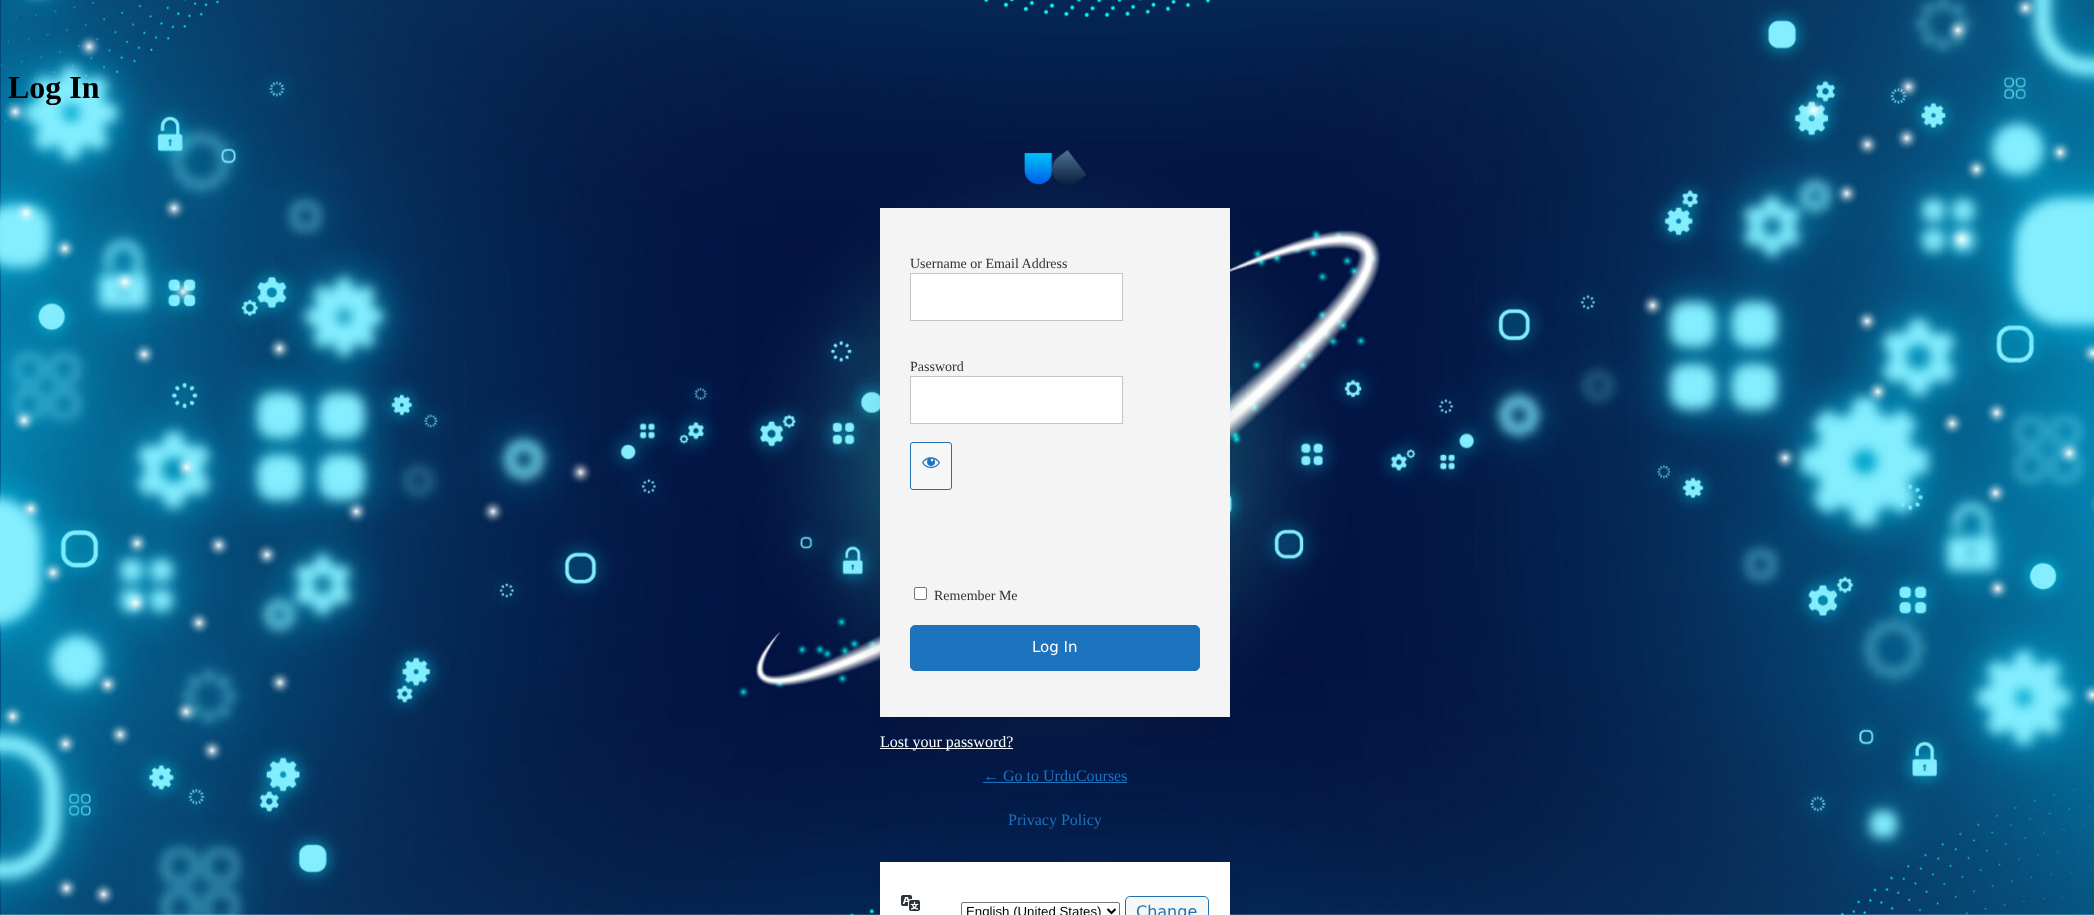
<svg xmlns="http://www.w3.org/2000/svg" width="2094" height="915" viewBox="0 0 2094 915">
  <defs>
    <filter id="blur1" x="-50%" y="-200%" width="200%" height="500%"><feGaussianBlur stdDeviation="15"/></filter>
  </defs>
  <rect width="100%" height="100%" fill="#ffffff"/>
  <image x="0" y="0" width="2094" height="915" href="img1.png"/>
  <text x="8" y="98" font-family="Liberation Serif" font-size="32" font-weight="bold" fill="#000000">Log In</text>
  <rect x="880" y="220" width="350" height="509" fill="#000000" fill-opacity="0.1" filter="url(#blur1)"/>
  <image x="1024" y="150" width="63" height="35" href="img2.png"/>
  <rect x="880" y="208" width="350" height="509" fill="#f4f4f4"/>
  <text x="910" y="268" font-family="Liberation Serif" font-size="14" fill="#2c3338">Username or Email Address</text>
  <rect x="910.5" y="273.5" width="212" height="47" fill="#ffffff" stroke="#c3c4c7"/>
  <text x="910" y="371" font-family="Liberation Serif" font-size="14" fill="#2c3338">Password</text>
  <rect x="910.5" y="376.5" width="212" height="47" fill="#ffffff" stroke="#c3c4c7"/>
  <rect x="910.5" y="442.5" width="41" height="47" rx="2.5" fill="#f6f7f7" stroke="#2271b1"/>
  <image x="922" y="457" width="18" height="12" href="img3.png"/>
  <rect x="914.5" y="587.5" width="12" height="12" rx="1.5" fill="#ffffff" stroke="#767676"/>
  <text x="934" y="600" font-family="Liberation Serif" font-size="14" fill="#2c3338">Remember Me</text>
  <rect x="910.5" y="625.5" width="289" height="45" rx="4.5" fill="#1e73be" stroke="#1e73be"/>
  <text x="1032" y="652" font-family="DejaVu Sans" font-size="15" fill="#ffffff">Log In</text>
  <rect x="880" y="748" width="133" height="1" fill="#ffffff"/>
  <text x="880" y="747" font-family="Liberation Serif" font-size="16" fill="#ffffff">Lost your password?</text>
  <text x="983" y="781" font-family="Liberation Serif" font-size="16" fill="#1e73be">← Go to UrduCourses</text>
  <rect x="983" y="782" width="144" height="1" fill="#1e73be"/>
  <rect x="880" y="874" width="350" height="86" fill="#000000" fill-opacity="0.1" filter="url(#blur1)"/>
  <text x="1008" y="825" font-family="Liberation Serif" font-size="16" fill="#1e73be">Privacy Policy</text>
  <rect x="880" y="862" width="350" height="53" fill="#ffffff"/>
  <image x="901" y="895" width="19" height="16" href="img4.png"/>
  <rect x="961.5" y="902.5" width="158" height="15" rx="1.5" fill="none" stroke="#767676"/>
  <path d="M1107.5 909L1111.5 913L1115.5 909" fill="none" stroke="#000000" stroke-width="2"/>
  <text x="966" y="916" font-family="Liberation Sans" font-size="13.25" fill="#000000">English (United States)</text>
  <rect x="1125.5" y="896.5" width="83" height="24" rx="4.5" fill="#f6f7f7" stroke="#2271b1"/>
  <text x="1136" y="917" font-family="DejaVu Sans" font-size="16" fill="#2271b1">Change</text>
</svg>
